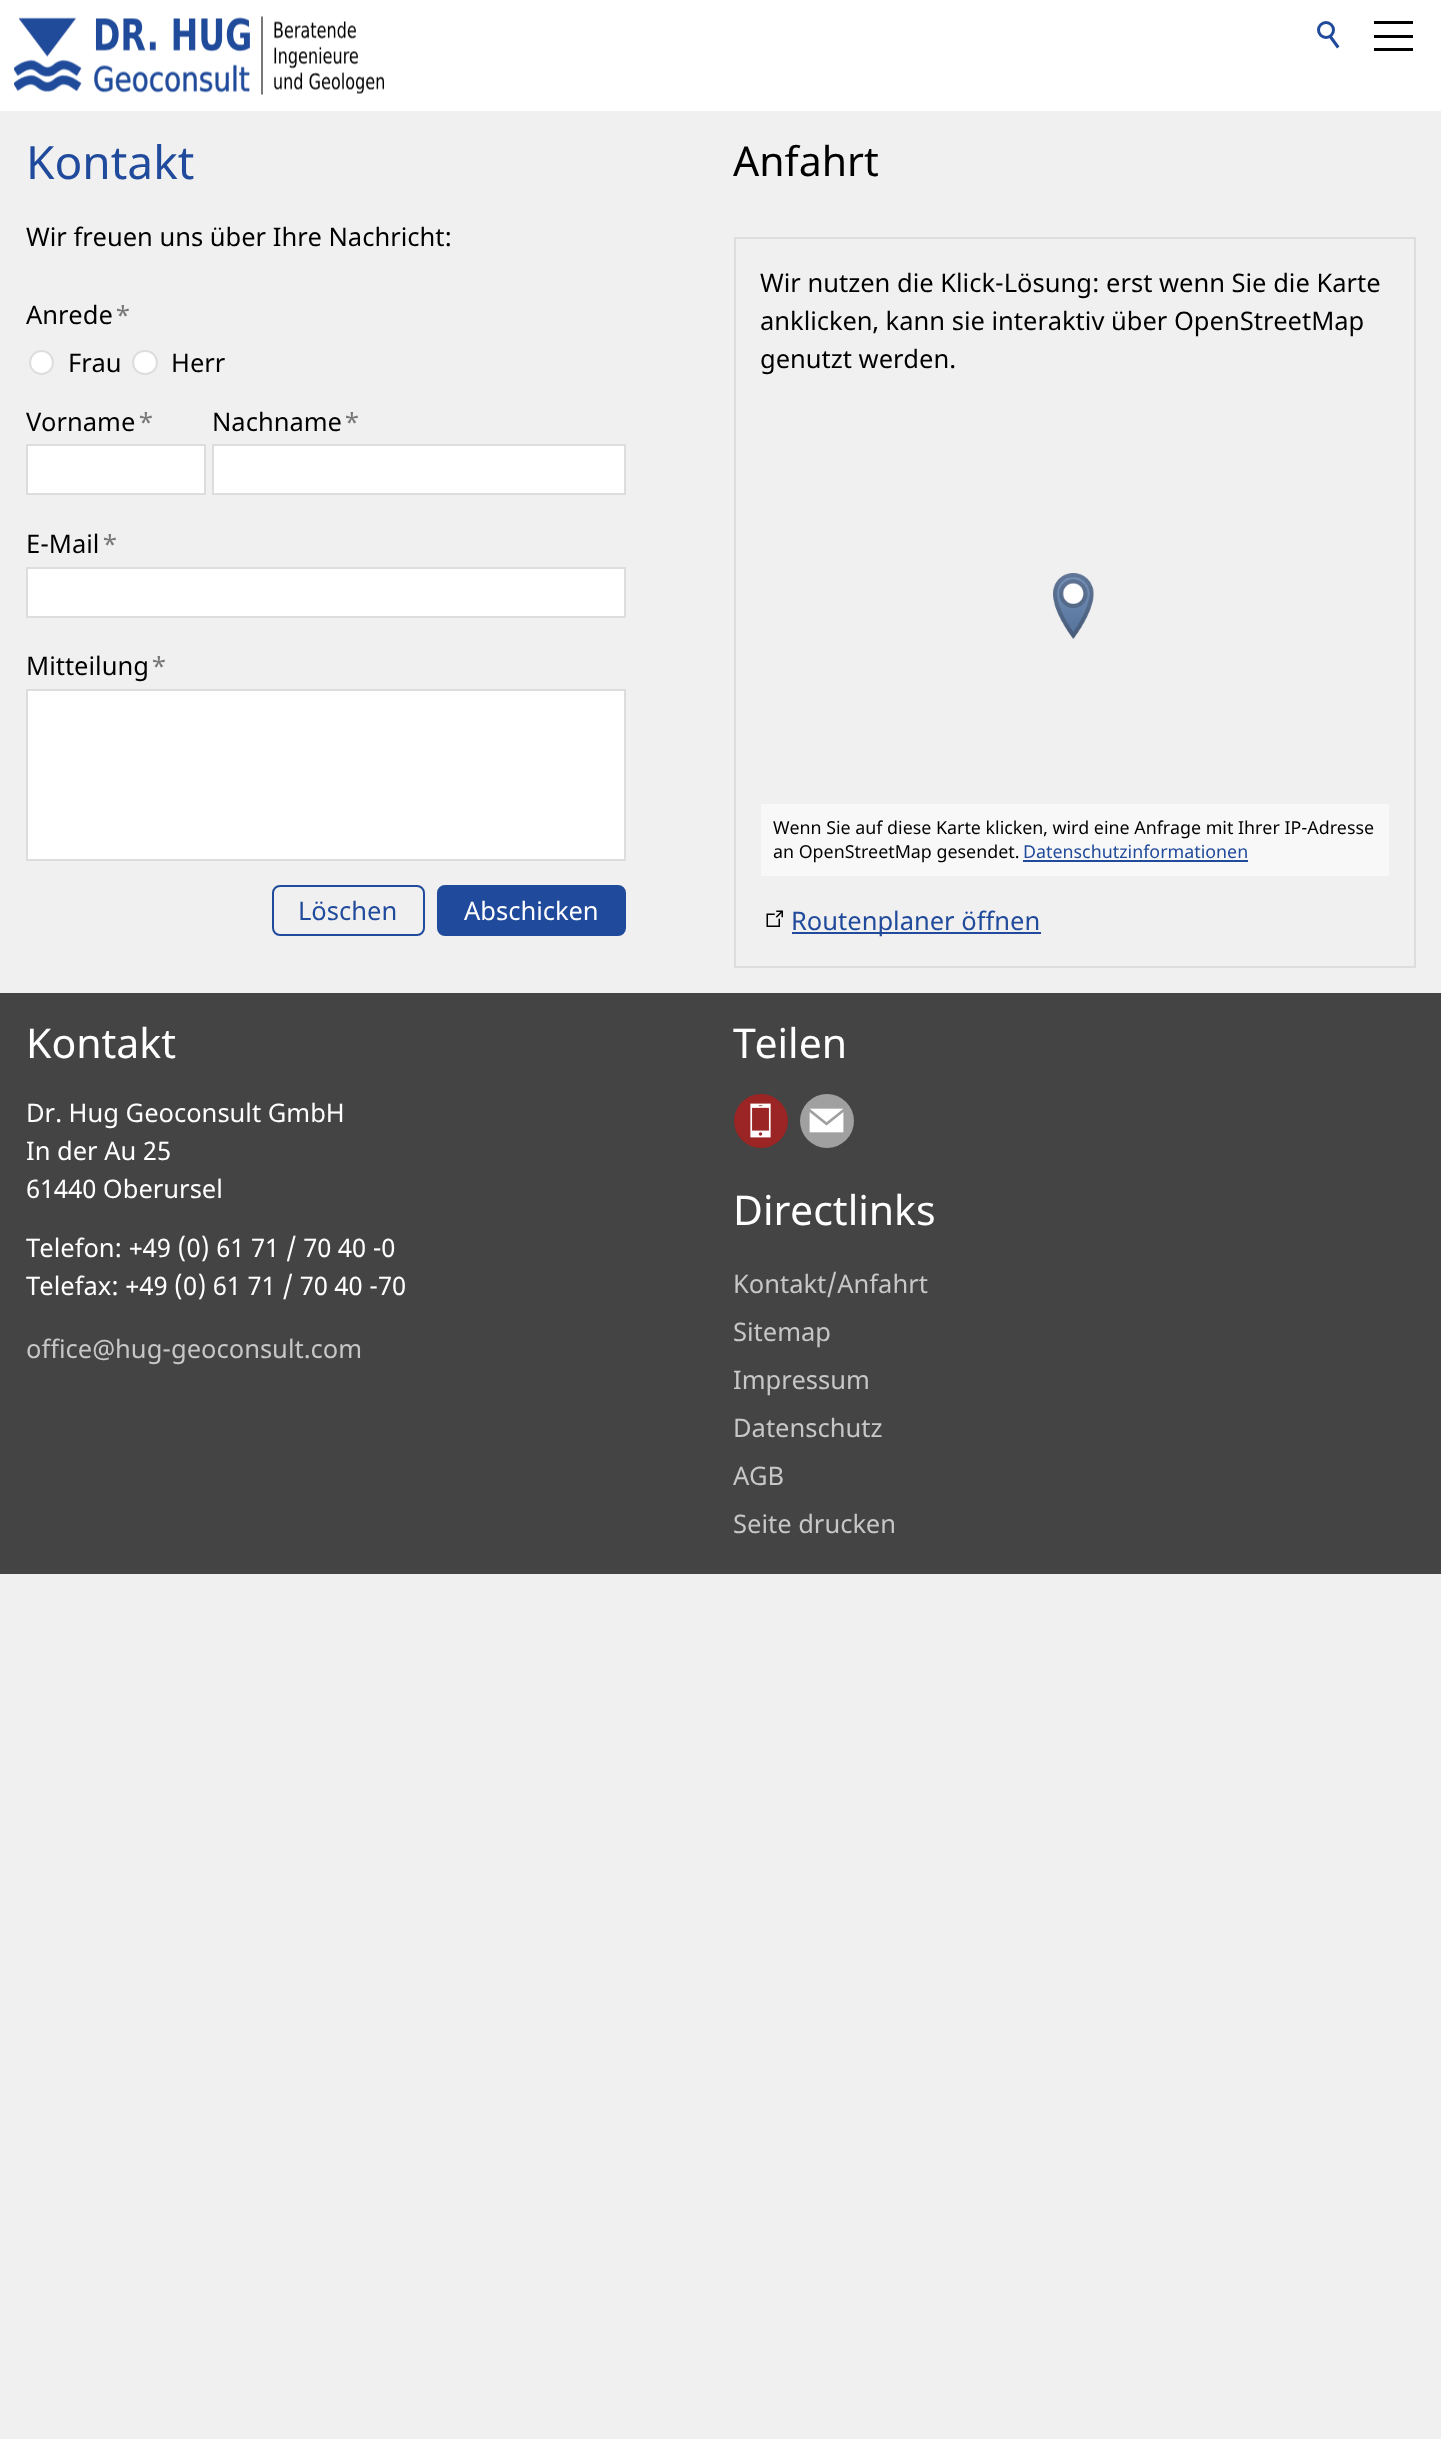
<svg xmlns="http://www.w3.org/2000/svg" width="1441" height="2439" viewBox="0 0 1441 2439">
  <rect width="100%" height="100%" fill="#f0f0f0"/>
  <rect x="0" y="0" width="1441" height="111" fill="#ffffff"/>
  <image x="14" y="16" width="370" height="79" href="img1.png"/>
  <circle cx="1326" cy="30" r="7.5" fill="none" stroke="#204a9b" stroke-width="3"/>
  <path d="M1331.5 35.5L1339.5 46.5L1337 48.5L1329 37.5Z" fill="#204a9b"/>
  <rect x="1374" y="21" width="39" height="3" fill="#000000"/>
  <rect x="1374" y="35" width="39" height="3" fill="#000000"/>
  <rect x="1374" y="48" width="39" height="3" fill="#000000"/>
  <text x="26" y="179" font-family="Noto Sans" font-size="46" fill="#204a9b">Kontakt</text>
  <text x="26" y="246" font-family="Noto Sans" font-size="25.5" fill="#000000">Wir freuen uns über Ihre Nachricht:</text>
  <text x="26" y="324" font-family="Noto Sans" font-size="25.5" fill="#000000">Anrede</text>
  <text x="115" y="324" font-family="Noto Sans" font-size="25.5" fill="#787878">*</text>
  <circle cx="41.5" cy="362.5" r="11.5" fill="#ffffff" stroke="#dddddd" stroke-width="2"/>
  <text x="68" y="372" font-family="Noto Sans" font-size="25.5" fill="#000000">Frau</text>
  <rect x="133" y="351" width="24" height="23" rx="11.5" fill="#ffffff" stroke="#dddddd" stroke-width="2"/>
  <text x="171" y="372" font-family="Noto Sans" font-size="25.5" fill="#000000">Herr</text>
  <text x="26" y="431" font-family="Noto Sans" font-size="25.5" fill="#000000">Vorname</text>
  <text x="138" y="431" font-family="Noto Sans" font-size="25.5" fill="#787878">*</text>
  <text x="212" y="431" font-family="Noto Sans" font-size="25.5" fill="#000000">Nachname</text>
  <text x="344" y="431" font-family="Noto Sans" font-size="25.5" fill="#787878">*</text>
  <rect x="27" y="445" width="178" height="49" fill="#ffffff" stroke="#dddddd" stroke-width="2"/>
  <rect x="213" y="445" width="412" height="49" fill="#ffffff" stroke="#dddddd" stroke-width="2"/>
  <text x="26" y="553" font-family="Noto Sans" font-size="25.5" fill="#000000">E-Mail</text>
  <text x="102" y="553" font-family="Noto Sans" font-size="25.5" fill="#787878">*</text>
  <rect x="27" y="568" width="598" height="49" fill="#ffffff" stroke="#dddddd" stroke-width="2"/>
  <text x="26" y="675" font-family="Noto Sans" font-size="25.5" fill="#000000">Mitteilung</text>
  <text x="151" y="675" font-family="Noto Sans" font-size="25.5" fill="#787878">*</text>
  <rect x="27" y="690" width="598" height="170" fill="#ffffff" stroke="#dddddd" stroke-width="2"/>
  <rect x="273" y="886" width="151" height="49" rx="7" fill="none" stroke="#204a9b" stroke-width="2"/>
  <text x="298" y="920" font-family="Noto Sans" font-size="25.5" fill="#204a9b">Löschen</text>
  <rect x="438" y="886" width="187" height="49" rx="7" fill="#204a9b" stroke="#204a9b" stroke-width="2"/>
  <text x="464" y="920" font-family="Noto Sans" font-size="25.5" fill="#ffffff">Abschicken</text>
  <text x="733" y="176" font-family="Noto Sans" font-size="41" fill="#000000">Anfahrt</text>
  <rect x="735" y="238" width="680" height="729" fill="none" stroke="#dddddd" stroke-width="2"/>
  <text x="760" y="292" font-family="Noto Sans" font-size="25.5" fill="#000000">Wir nutzen die Klick-Lösung: erst wenn Sie die Karte</text>
  <text x="760" y="330" font-family="Noto Sans" font-size="25.5" fill="#000000">anklicken, kann sie interaktiv über OpenStreetMap</text>
  <text x="760" y="368" font-family="Noto Sans" font-size="25.5" fill="#000000">genutzt werden.</text>
  <image x="1053" y="573" width="41" height="66" href="img2.png"/>
  <rect x="761" y="804" width="628" height="72" fill="#f8f8f8"/>
  <text x="773" y="834" font-family="Noto Sans" font-size="17.85" fill="#000000">Wenn Sie auf diese Karte klicken, wird eine Anfrage mit Ihrer IP-Adresse</text>
  <text x="773" y="858" font-family="Noto Sans" font-size="17.85" fill="#000000">an OpenStreetMap gesendet.</text>
  <text x="1023" y="858" font-family="Noto Sans" font-size="17.85" fill="#204a9b">Datenschutzinformationen</text>
  <rect x="1023" y="860" width="225" height="2" fill="#204a9b"/>
  <image x="766" y="910" width="17" height="17" href="img3.png"/>
  <rect x="792" y="932" width="249" height="2" fill="#204a9b"/>
  <text x="791" y="930" font-family="Noto Sans" font-size="25.5" fill="#204a9b">Routenplaner öffnen</text>
  <rect x="0" y="993" width="1441" height="581" fill="#444444"/>
  <text x="26" y="1058" font-family="Noto Sans" font-size="41" fill="#ffffff">Kontakt</text>
  <text x="26" y="1122" font-family="Noto Sans" font-size="25.5" fill="#ffffff">Dr. Hug Geoconsult GmbH</text>
  <text x="26" y="1160" font-family="Noto Sans" font-size="25.5" fill="#ffffff">In der Au 25</text>
  <text x="26" y="1198" font-family="Noto Sans" font-size="25.5" fill="#ffffff">61440 Oberursel</text>
  <text x="26" y="1257" font-family="Noto Sans" font-size="25.5" fill="#ffffff">Telefon: +49 (0) 61 71 / 70 40 -0</text>
  <text x="26" y="1295" font-family="Noto Sans" font-size="25.5" fill="#ffffff">Telefax: +49 (0) 61 71 / 70 40 -70</text>
  <text x="26" y="1358" font-family="Noto Sans" font-size="25.5" fill="#c7c7c7">office@hug-geoconsult.com</text>
  <text x="733" y="1058" font-family="Noto Sans" font-size="41" fill="#ffffff">Teilen</text>
  <circle cx="761" cy="1121" r="27" fill="#9b2424"/>
  <image x="750" y="1103" width="21" height="35" href="img4.png"/>
  <circle cx="827" cy="1121" r="27" fill="#a0a0a0"/>
  <image x="809" y="1108" width="35" height="25" href="img5.png"/>
  <text x="733" y="1225" font-family="Noto Sans" font-size="41" fill="#ffffff">Directlinks</text>
  <text x="733" y="1293" font-family="Noto Sans" font-size="25.5" fill="#c7c7c7">Kontakt/Anfahrt</text>
  <text x="733" y="1341" font-family="Noto Sans" font-size="25.5" fill="#c7c7c7">Sitemap</text>
  <text x="733" y="1389" font-family="Noto Sans" font-size="25.5" fill="#c7c7c7">Impressum</text>
  <text x="733" y="1437" font-family="Noto Sans" font-size="25.5" fill="#c7c7c7">Datenschutz</text>
  <text x="733" y="1485" font-family="Noto Sans" font-size="25.5" fill="#c7c7c7">AGB</text>
  <text x="733" y="1533" font-family="Noto Sans" font-size="25.5" fill="#c7c7c7">Seite drucken</text>
</svg>
